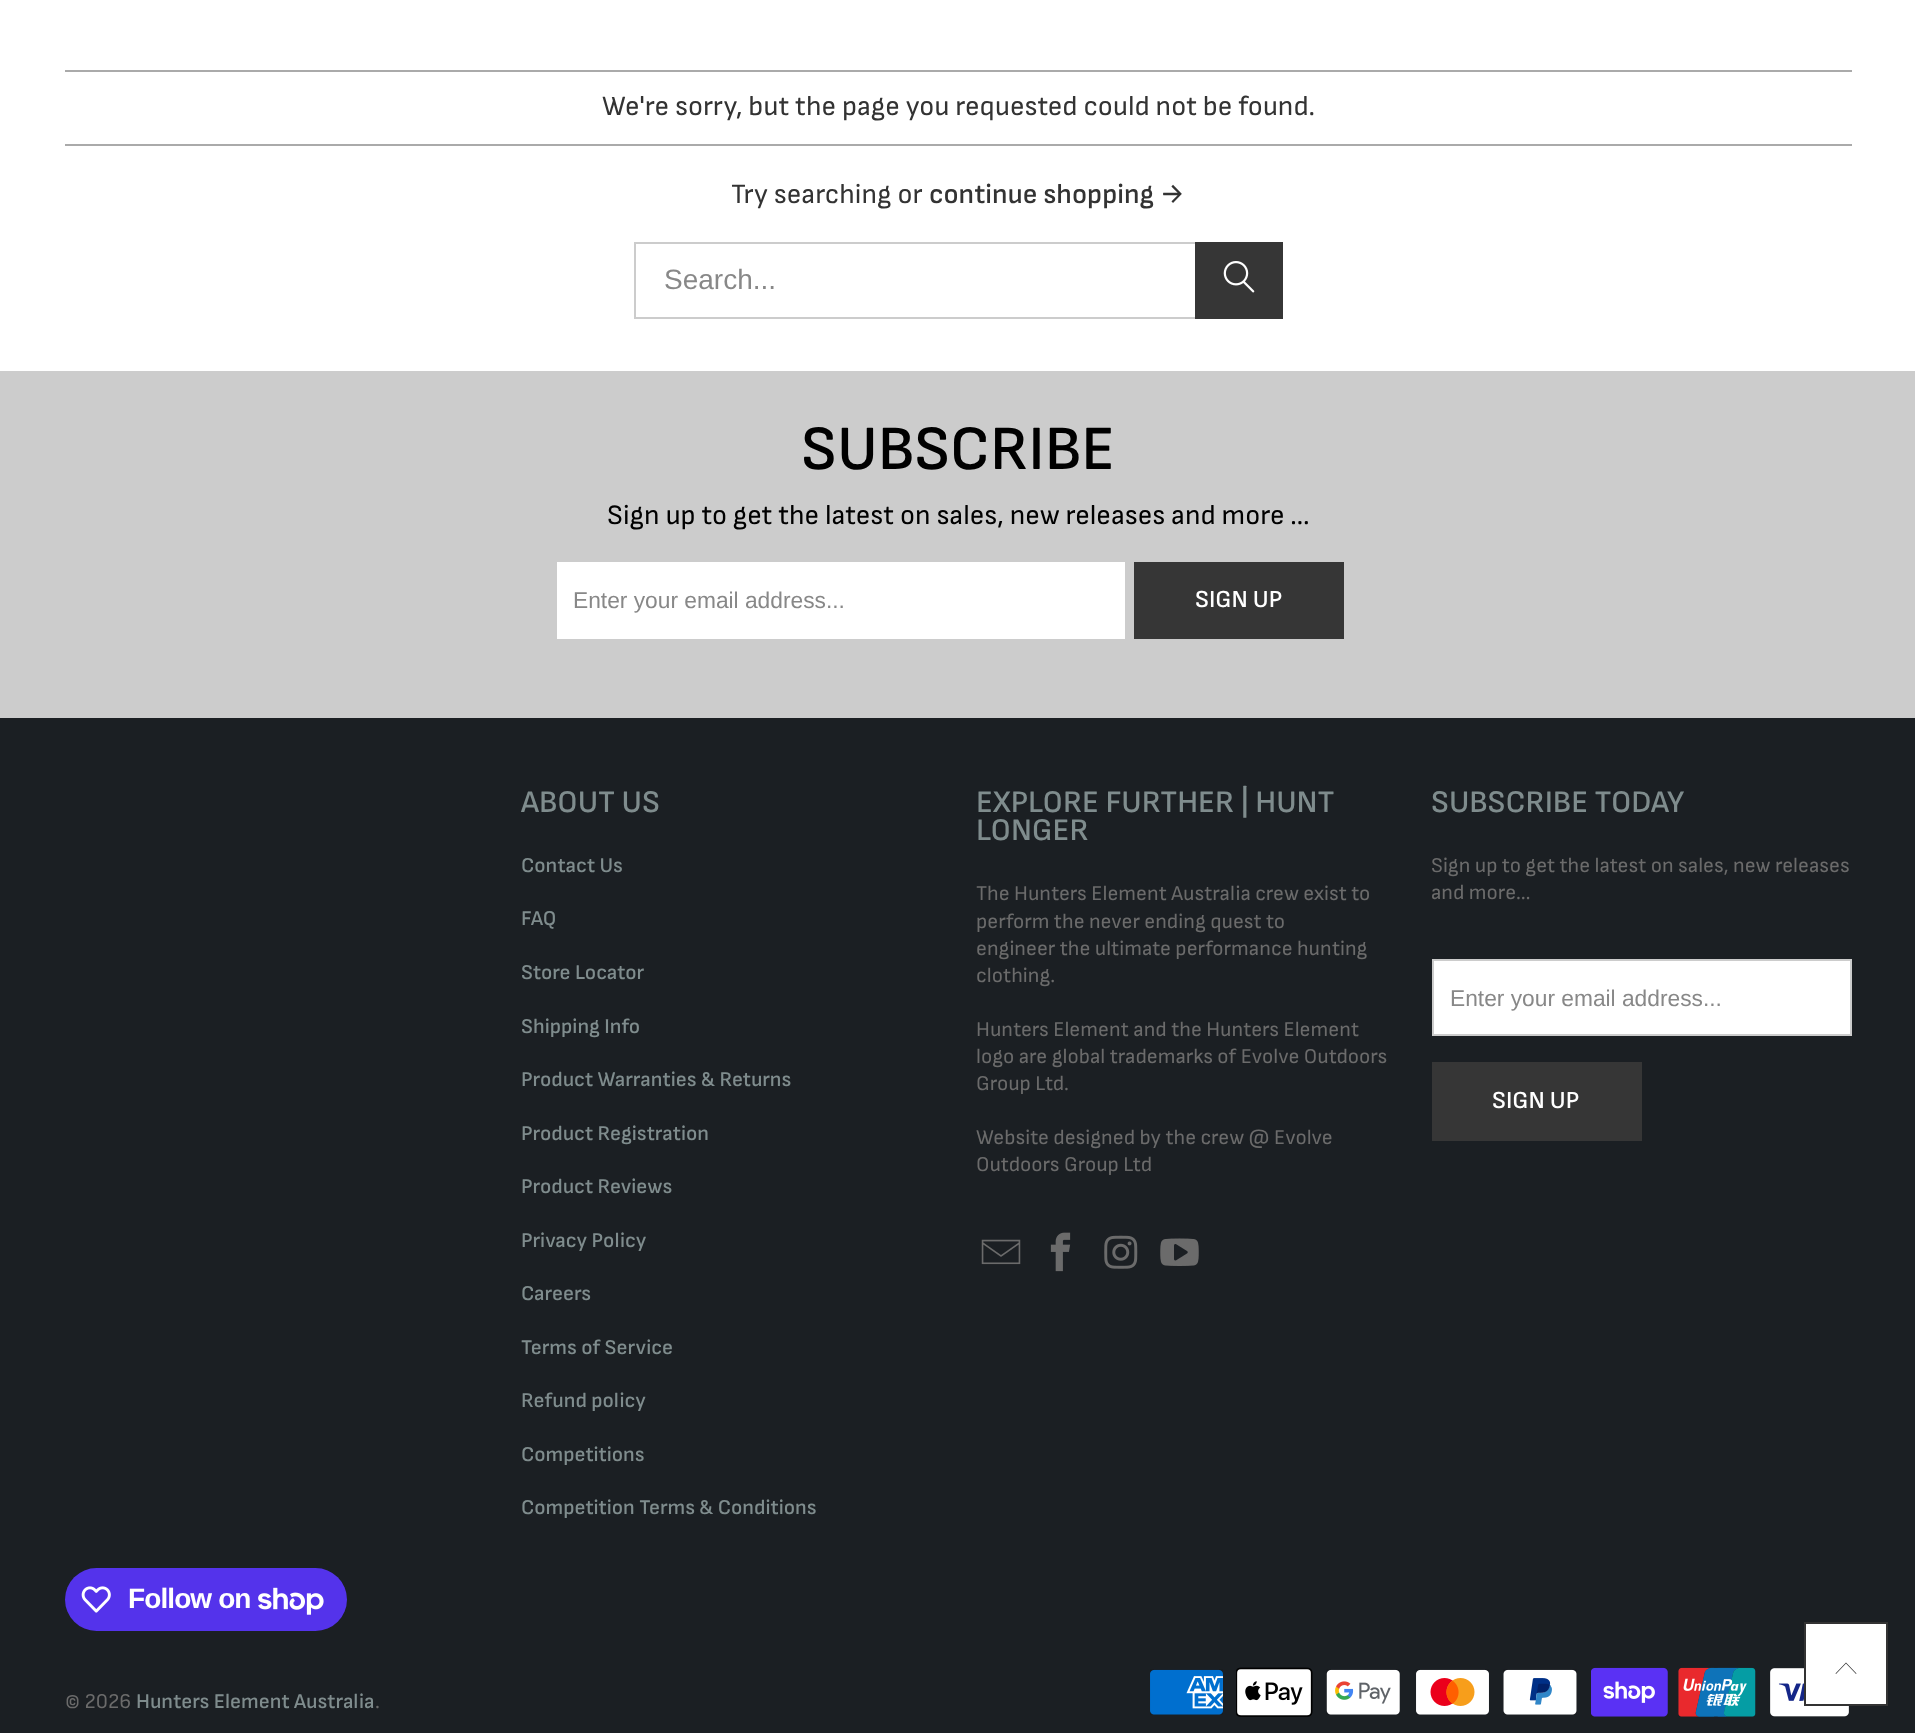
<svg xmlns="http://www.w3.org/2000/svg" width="1915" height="1733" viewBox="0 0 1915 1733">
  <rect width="100%" height="100%" fill="#ffffff"/>
  <rect x="65" y="70" width="1787" height="2" fill="#aaaaaa"/>
  <rect x="65" y="144" width="1787" height="2" fill="#aaaaaa"/>
  <text x="602" y="115" font-family="Sofia Sans" font-size="28" fill="#333333">We're sorry, but the page you requested could not be found.</text>
  <text x="731" y="203" font-family="Sofia Sans" font-size="28" fill="#333333">Try searching or</text>
  <text x="929" y="203" font-family="Sofia Sans" font-size="28" font-weight="600" fill="#333333">continue shopping →</text>
  <rect x="635" y="243" width="647" height="75" fill="none" stroke="#cccccc" stroke-width="2"/>
  <text x="664" y="289" font-family="Liberation Sans" font-size="28" fill="#888888">Search...</text>
  <rect x="1195" y="242" width="88" height="77" fill="#363636"/>
  <image x="1223" y="261" width="32" height="32" href="img1.png"/>
  <rect x="0" y="371" width="1915" height="347" fill="#cccccc"/>
  <text x="801" y="469" font-family="Sofia Sans" font-size="63" font-weight="600" fill="#000000">SUBSCRIBE</text>
  <text x="607" y="524" font-family="Sofia Sans" font-size="28" fill="#000000">Sign up to get the latest on sales, new releases and more …</text>
  <rect x="557" y="562" width="568" height="77" fill="#ffffff"/>
  <text x="573" y="608" font-family="Liberation Sans" font-size="22.75" fill="#888888">Enter your email address...</text>
  <rect x="1134" y="562" width="210" height="77" fill="#363636"/>
  <text x="1195" y="607" font-family="Sofia Sans" font-size="24.5" font-weight="600" fill="#ffffff">SIGN UP</text>
  <rect x="0" y="718" width="1915" height="1015" fill="#1b1f23"/>
  <text x="521" y="812" font-family="Sofia Sans" font-size="31.5" font-weight="600" fill="#7f8c8d">ABOUT US</text>
  <text x="521" y="872" font-family="Sofia Sans" font-size="21" font-weight="600" fill="#7f8c8d">Contact Us</text>
  <text x="521" y="925" font-family="Sofia Sans" font-size="21" font-weight="600" fill="#7f8c8d">FAQ</text>
  <text x="521" y="979" font-family="Sofia Sans" font-size="21" font-weight="600" fill="#7f8c8d">Store Locator</text>
  <text x="521" y="1033" font-family="Sofia Sans" font-size="21" font-weight="600" fill="#7f8c8d">Shipping Info</text>
  <text x="521" y="1086" font-family="Sofia Sans" font-size="21" font-weight="600" fill="#7f8c8d">Product Warranties &amp; Returns</text>
  <text x="521" y="1140" font-family="Sofia Sans" font-size="21" font-weight="600" fill="#7f8c8d">Product Registration</text>
  <text x="521" y="1193" font-family="Sofia Sans" font-size="21" font-weight="600" fill="#7f8c8d">Product Reviews</text>
  <text x="521" y="1247" font-family="Sofia Sans" font-size="21" font-weight="600" fill="#7f8c8d">Privacy Policy</text>
  <text x="521" y="1300" font-family="Sofia Sans" font-size="21" font-weight="600" fill="#7f8c8d">Careers</text>
  <text x="521" y="1354" font-family="Sofia Sans" font-size="21" font-weight="600" fill="#7f8c8d">Terms of Service</text>
  <text x="521" y="1407" font-family="Sofia Sans" font-size="21" font-weight="600" fill="#7f8c8d">Refund policy</text>
  <text x="521" y="1461" font-family="Sofia Sans" font-size="21" font-weight="600" fill="#7f8c8d">Competitions</text>
  <text x="521" y="1514" font-family="Sofia Sans" font-size="21" font-weight="600" fill="#7f8c8d">Competition Terms &amp; Conditions</text>
  <text x="976" y="812" font-family="Sofia Sans" font-size="31.5" font-weight="600" fill="#7f8c8d">EXPLORE FURTHER | HUNT</text>
  <text x="976" y="840" font-family="Sofia Sans" font-size="31.5" font-weight="600" fill="#7f8c8d">LONGER</text>
  <text x="976" y="900" font-family="Sofia Sans" font-size="21" fill="#6b6b6b">The Hunters Element Australia crew exist to</text>
  <text x="976" y="928" font-family="Sofia Sans" font-size="21" fill="#6b6b6b">perform the never ending quest to</text>
  <text x="976" y="955" font-family="Sofia Sans" font-size="21" fill="#6b6b6b">engineer the ultimate performance hunting</text>
  <text x="976" y="982" font-family="Sofia Sans" font-size="21" fill="#6b6b6b">clothing.</text>
  <text x="976" y="1036" font-family="Sofia Sans" font-size="21" fill="#6b6b6b">Hunters Element and the Hunters Element</text>
  <text x="976" y="1063" font-family="Sofia Sans" font-size="21" fill="#6b6b6b">logo are global trademarks of Evolve Outdoors</text>
  <text x="976" y="1090" font-family="Sofia Sans" font-size="21" fill="#6b6b6b">Group Ltd.</text>
  <text x="976" y="1144" font-family="Sofia Sans" font-size="21" fill="#6b6b6b">Website designed by the crew @ Evolve</text>
  <text x="976" y="1171" font-family="Sofia Sans" font-size="21" fill="#6b6b6b">Outdoors Group Ltd</text>
  <image x="981" y="1239" width="40" height="26" href="img2.png"/>
  <image x="1050" y="1232" width="21" height="40" href="img3.png"/>
  <image x="1104" y="1235" width="34" height="34" href="img4.png"/>
  <image x="1160" y="1238" width="39" height="28" href="img5.png"/>
  <text x="1431" y="812" font-family="Sofia Sans" font-size="31.5" font-weight="600" fill="#7f8c8d">SUBSCRIBE TODAY</text>
  <text x="1431" y="872" font-family="Sofia Sans" font-size="21" fill="#6b6b6b">Sign up to get the latest on sales, new releases</text>
  <text x="1431" y="899" font-family="Sofia Sans" font-size="21" fill="#6b6b6b">and more…</text>
  <rect x="1433" y="960" width="418" height="75" fill="#ffffff" stroke="#cccccc" stroke-width="2"/>
  <text x="1450" y="1006" font-family="Liberation Sans" font-size="22.75" fill="#888888">Enter your email address...</text>
  <rect x="1432" y="1062" width="210" height="79" fill="#363636"/>
  <text x="1492" y="1108" font-family="Sofia Sans" font-size="24.5" font-weight="600" fill="#ffffff">SIGN UP</text>
  <rect x="65" y="1568" width="282" height="63" rx="31.5" fill="#5433eb"/>
  <image x="81" y="1586" width="30" height="27" href="img6.png"/>
  <text x="128" y="1608" font-family="Liberation Sans" font-size="28" font-weight="bold" letter-spacing="-0.9" fill="#ffffff">Follow on</text>
  <image x="258" y="1587" width="66" height="28" href="img7.png"/>
  <text x="65" y="1708" font-family="Sofia Sans" font-size="21" fill="#6b6b6b">© 2026</text>
  <text x="136" y="1708" font-family="Sofia Sans" font-size="21" font-weight="600" fill="#7f8c8d">Hunters Element Australia</text>
  <text x="375" y="1708" font-family="Sofia Sans" font-size="21" fill="#6b6b6b">.</text>
  <image x="1150" y="1669" width="73" height="46" href="img8.png"/>
  <image x="1236" y="1667" width="77" height="50" href="img9.png"/>
  <image x="1326" y="1669" width="74" height="46" href="img10.png"/>
  <image x="1416" y="1669" width="73" height="46" href="img11.png"/>
  <image x="1503" y="1669" width="74" height="46" href="img12.png"/>
  <image x="1591" y="1667" width="77" height="50" href="img13.png"/>
  <image x="1678" y="1667" width="78" height="50" href="img14.png"/>
  <image x="1770" y="1668" width="79" height="49" href="img15.png"/>
  <rect x="1805" y="1623" width="82" height="82" fill="#ffffff" stroke="#333333" stroke-width="2"/>
  <path d="M1846 1662.5L1856.5 1673.5L1856 1674L1846 1663.5L1836 1674L1835.5 1673.5Z" fill="#333333"/>
</svg>
